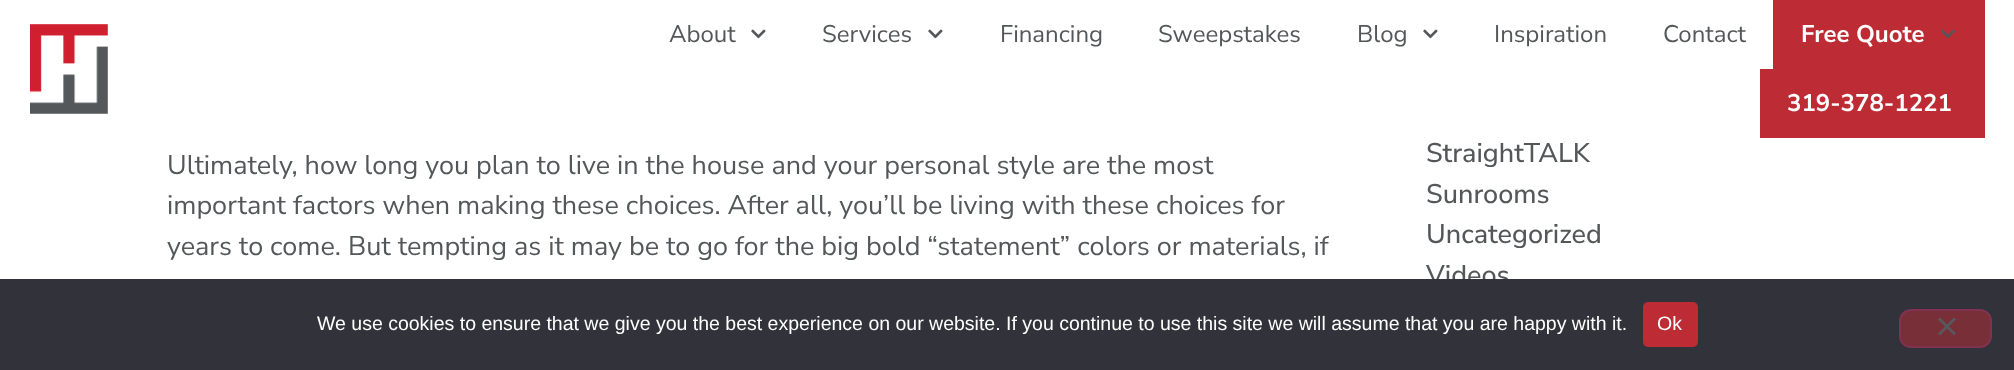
<svg xmlns="http://www.w3.org/2000/svg" width="2014" height="370" viewBox="0 0 2014 370">
  <rect width="100%" height="100%" fill="#ffffff"/>
  <image x="30" y="24" width="78" height="90" href="img1.png"/>
  <text x="669" y="42" font-family="Nunito Sans" font-size="24" fill="#545759">About</text>
  <image x="751" y="29" width="15" height="10" href="img2.png"/>
  <text x="822" y="42" font-family="Nunito Sans" font-size="24" fill="#545759">Services</text>
  <image x="928" y="29" width="15" height="10" href="img2.png"/>
  <text x="1000" y="42" font-family="Nunito Sans" font-size="24" fill="#545759">Financing</text>
  <text x="1158" y="42" font-family="Nunito Sans" font-size="24" fill="#545759">Sweepstakes</text>
  <text x="1357" y="42" font-family="Nunito Sans" font-size="24" fill="#545759">Blog</text>
  <image x="1423" y="29" width="15" height="10" href="img2.png"/>
  <text x="1494" y="42" font-family="Nunito Sans" font-size="24" fill="#545759">Inspiration</text>
  <text x="1663" y="42" font-family="Nunito Sans" font-size="24" fill="#545759">Contact</text>
  <rect x="1773" y="0" width="212" height="69" fill="#bd2c34"/>
  <text x="1801" y="42" font-family="Nunito Sans" font-size="24" font-weight="bold" fill="#ffffff">Free Quote</text>
  <image x="1940" y="29" width="15" height="10" href="img3.png"/>
  <rect x="1760" y="69" width="225" height="69" fill="#bd2c34"/>
  <text x="1787" y="111" font-family="Nunito Sans" font-size="24" font-weight="bold" fill="#ffffff">319-378-1221</text>
  <text x="167" y="174" font-family="Nunito Sans" font-size="27" fill="#545759">Ultimately, how long you plan to live in the house and your personal style are the most</text>
  <text x="167" y="214" font-family="Nunito Sans" font-size="27" fill="#545759">important factors when making these choices. After all, you’ll be living with these choices for</text>
  <text x="167" y="255" font-family="Nunito Sans" font-size="27" fill="#545759">years to come. But tempting as it may be to go for the big bold “statement” colors or materials, if</text>
  <text x="1426" y="162" font-family="Nunito Sans" font-size="27" font-weight="500" fill="#545759">StraightTALK</text>
  <text x="1426" y="203" font-family="Nunito Sans" font-size="27" font-weight="500" fill="#545759">Sunrooms</text>
  <text x="1426" y="243" font-family="Nunito Sans" font-size="27" font-weight="500" fill="#545759">Uncategorized</text>
  <text x="1426" y="284" font-family="Nunito Sans" font-size="27" font-weight="500" fill="#545759">Videos</text>
  <rect x="0" y="279" width="2014" height="91" fill="#32323a"/>
  <text x="317" y="330" font-family="Liberation Sans" font-size="19.5" fill="#ffffff">We use cookies to ensure that we give you the best experience on our website. If you continue to use this site we will assume that you are happy with it.</text>
  <rect x="1643" y="302" width="55" height="45" rx="5" fill="#bd2c34"/>
  <text x="1657" y="330" font-family="Liberation Sans" font-size="19.5" fill="#ffffff">Ok</text>
  <rect x="1900" y="310" width="91" height="37" rx="11" fill="#782f37" stroke="#7f3350" stroke-width="2"/>
  <path d="M1954 317.5L1956 319.5L1940 335.5L1938 333.5Z" fill="#59595d"/>
  <path d="M1938 319.5L1940 317.5L1956 333.5L1954 335.5Z" fill="#59595d"/>
</svg>
